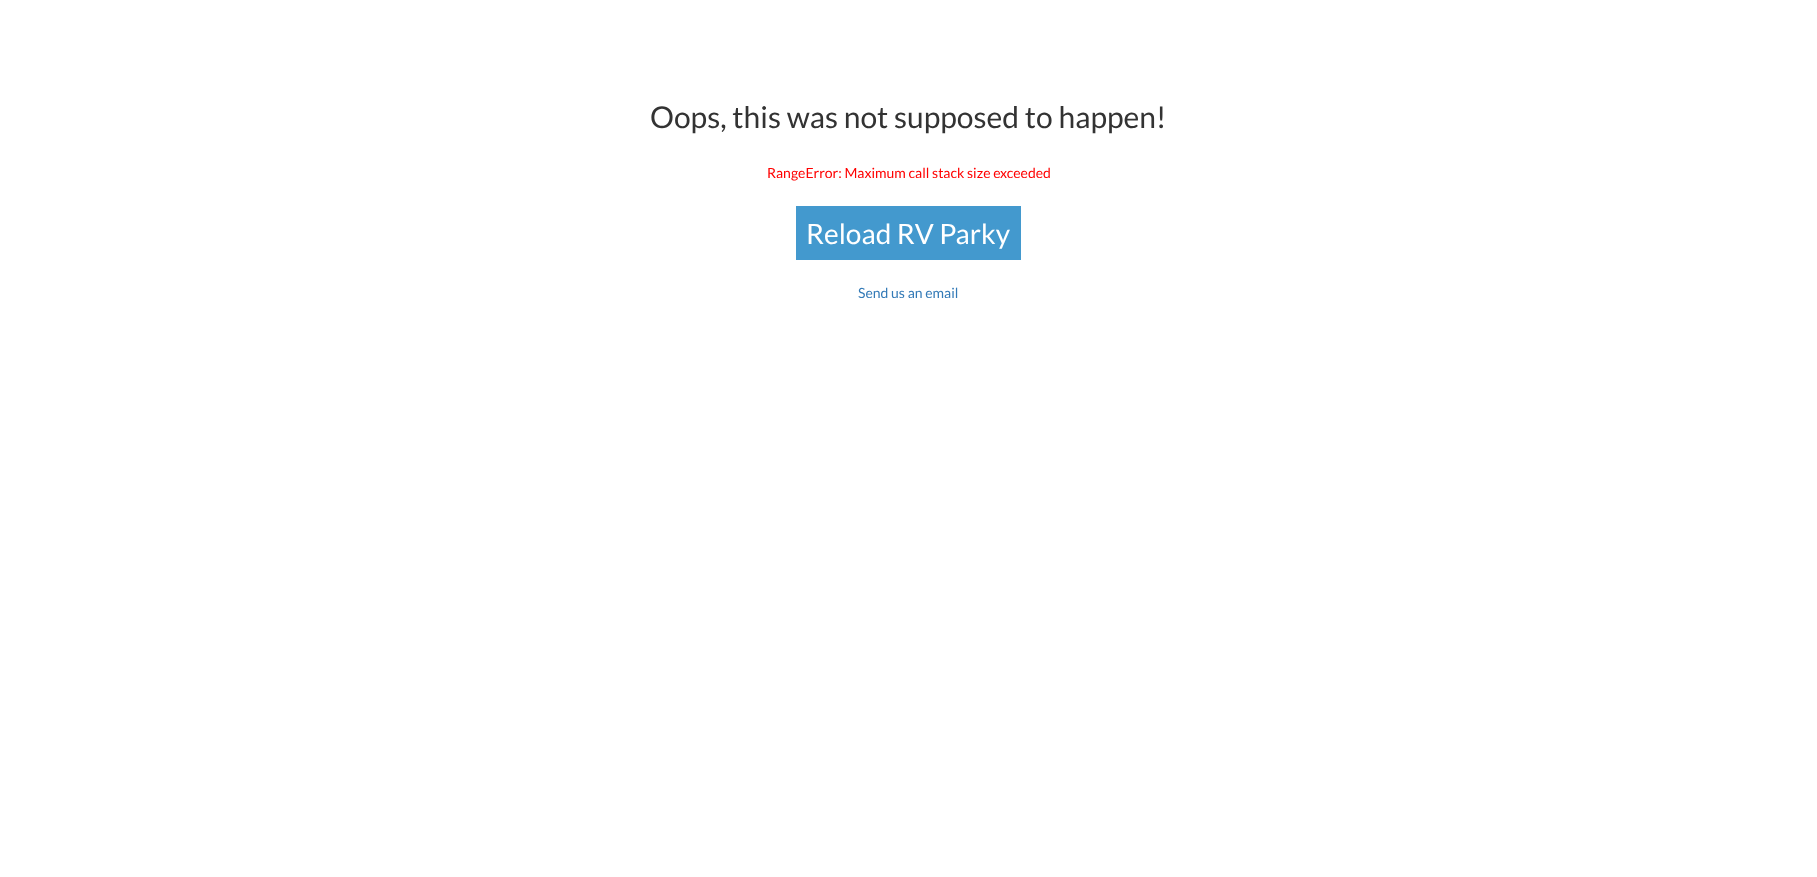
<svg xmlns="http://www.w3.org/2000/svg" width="1817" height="877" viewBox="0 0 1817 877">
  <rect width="100%" height="100%" fill="#ffffff"/>
  <text x="650" y="128" font-family="Lato" font-size="30" fill="#333333">Oops, this was not supposed to happen!</text>
  <text x="767" y="178" font-family="Lato" font-size="14" fill="#ff0000">RangeError: Maximum call stack size exceeded</text>
  <rect x="796" y="206" width="225" height="54" fill="#4399ce"/>
  <text x="806" y="244" font-family="Lato" font-size="28" fill="#ffffff">Reload RV Parky</text>
  <text x="858" y="298" font-family="Lato" font-size="14" fill="#337ab7">Send us an email</text>
</svg>
